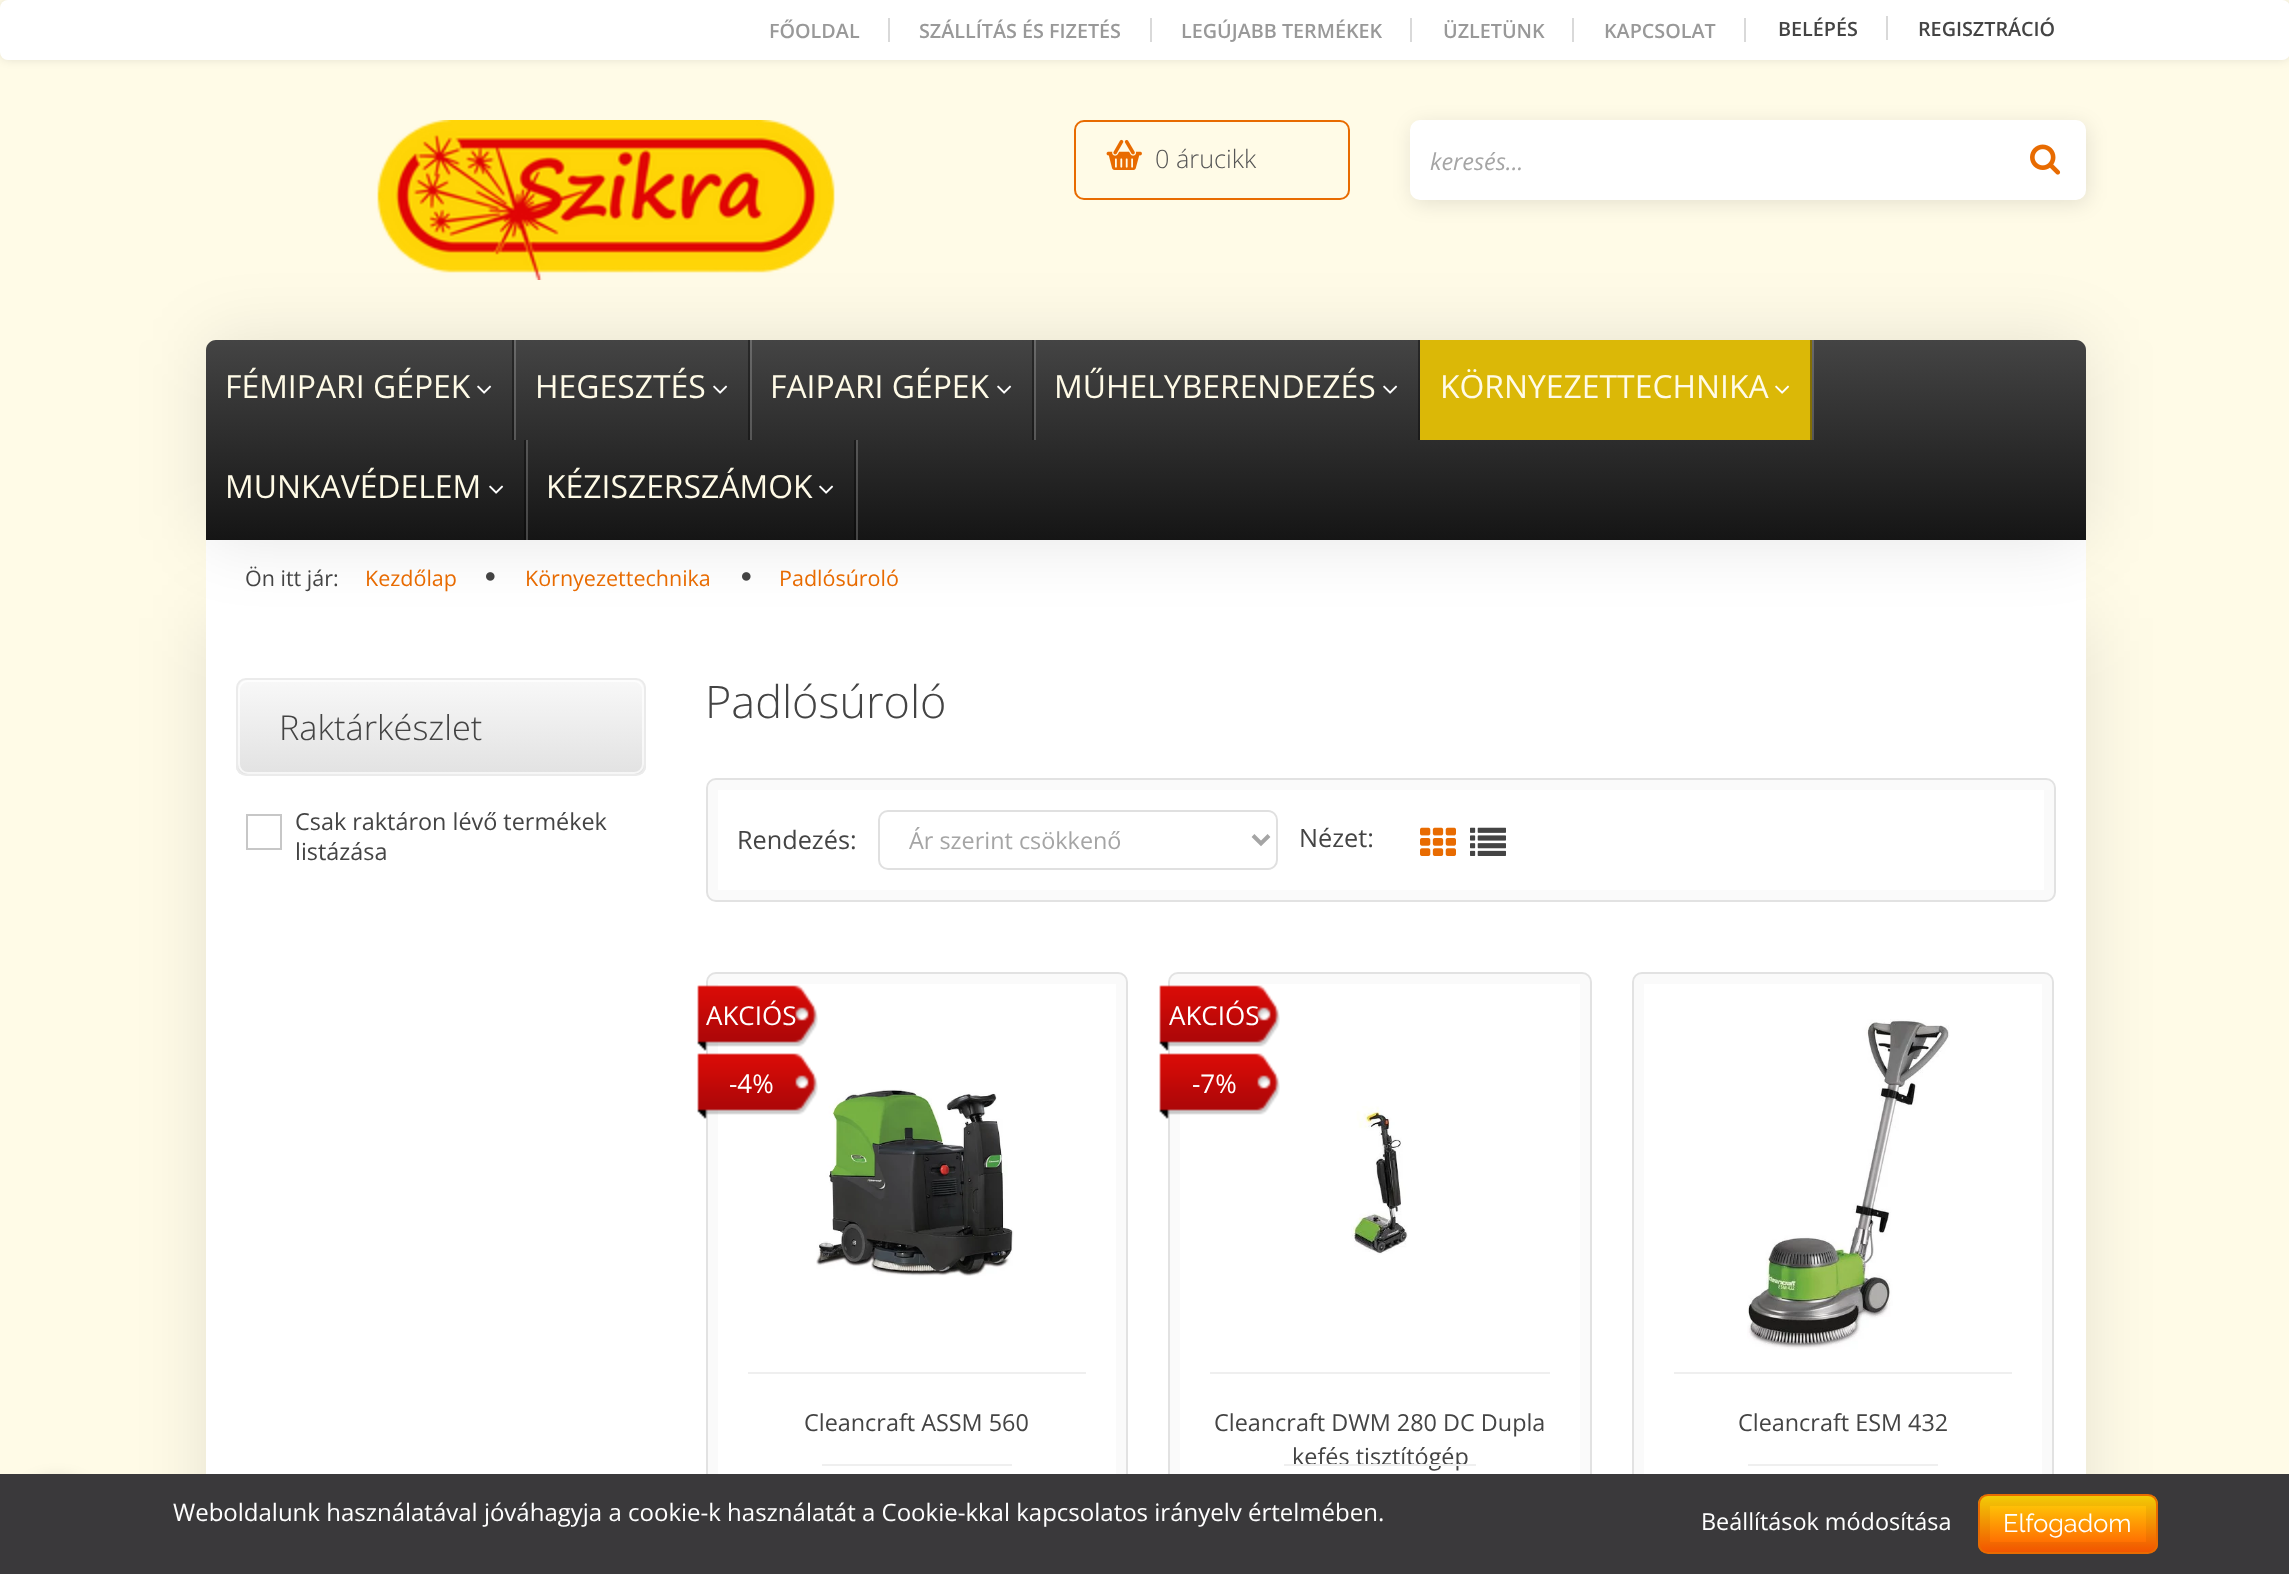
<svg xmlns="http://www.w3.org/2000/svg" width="2289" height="1574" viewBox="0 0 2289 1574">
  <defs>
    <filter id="blur1" x="-50%" y="-200%" width="200%" height="500%"><feGaussianBlur stdDeviation="5"/></filter>
    <filter id="blur2" x="-50%" y="-200%" width="200%" height="500%"><feGaussianBlur stdDeviation="10"/></filter>
    <filter id="blur3" x="-50%" y="-200%" width="200%" height="500%"><feGaussianBlur stdDeviation="35"/></filter>
    <linearGradient id="g1" gradientUnits="userSpaceOnUse" x1="1146" y1="340" x2="1146" y2="540"><stop offset="0" stop-color="#444444"/><stop offset="1" stop-color="#151515"/></linearGradient>
    <linearGradient id="g2" gradientUnits="userSpaceOnUse" x1="1146" y1="340" x2="1146" y2="540"><stop offset="0" stop-color="#292929"/><stop offset="1" stop-color="#0d0d0d"/></linearGradient>
    <linearGradient id="g3" gradientUnits="userSpaceOnUse" x1="1146" y1="340" x2="1146" y2="540"><stop offset="0" stop-color="#696969"/><stop offset="1" stop-color="#444444"/></linearGradient>
    <clipPath id="clip1"><rect x="236" y="678" width="410" height="98" rx="10"/></clipPath>
    <linearGradient id="g4" gradientUnits="userSpaceOnUse" x1="441" y1="680" x2="441" y2="774"><stop offset="0" stop-color="#f8f8f8"/><stop offset="1" stop-color="#e2e2e2"/></linearGradient>
    <clipPath id="clip2"><rect x="1978" y="1494" width="180" height="60" rx="10"/></clipPath>
    <linearGradient id="g5" gradientUnits="userSpaceOnUse" x1="2068" y1="1496" x2="2068" y2="1552"><stop offset="0" stop-color="#ffd607"/><stop offset="1" stop-color="#ff5a01"/></linearGradient>
  </defs>
  <rect width="100%" height="100%" fill="#fffbe7"/>
  <rect x="0" y="0" width="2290" height="60" rx="8" fill="#000000" fill-opacity="0.1" filter="url(#blur1)"/>
  <rect x="0" y="0" width="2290" height="60" rx="8" fill="#ffffff"/>
  <text x="769" y="38" font-family="Open Sans" font-size="19.75" font-weight="600" fill="#999999">FŐOLDAL</text>
  <rect x="888" y="18" width="2" height="24" fill="#d9d9d9"/>
  <text x="919" y="38" font-family="Open Sans" font-size="19.75" font-weight="600" fill="#999999">SZÁLLÍTÁS ÉS FIZETÉS</text>
  <rect x="1150" y="18" width="2" height="24" fill="#d9d9d9"/>
  <text x="1181" y="38" font-family="Open Sans" font-size="19.75" font-weight="600" fill="#999999">LEGÚJABB TERMÉKEK</text>
  <rect x="1410" y="18" width="2" height="24" fill="#d9d9d9"/>
  <text x="1443" y="38" font-family="Open Sans" font-size="19.75" font-weight="600" fill="#999999">ÜZLETÜNK</text>
  <rect x="1572" y="18" width="2" height="24" fill="#d9d9d9"/>
  <text x="1604" y="38" font-family="Open Sans" font-size="19.75" font-weight="600" fill="#999999">KAPCSOLAT</text>
  <rect x="1744" y="18" width="2" height="24" fill="#d9d9d9"/>
  <text x="1778" y="36" font-family="Open Sans" font-size="19.75" font-weight="600" fill="#444444">BELÉPÉS</text>
  <rect x="1886" y="16" width="2" height="24" fill="#d9d9d9"/>
  <text x="1918" y="36" font-family="Open Sans" font-size="19.75" font-weight="600" fill="#444444">REGISZTRÁCIÓ</text>
  <image x="377" y="120" width="458" height="160" href="img1.png"/>
  <rect x="1075" y="121" width="274" height="78" rx="9" fill="none" stroke="#e86b01" stroke-width="2"/>
  <image x="1106" y="139" width="36" height="31" href="img2.png"/>
  <text x="1155" y="168" font-family="Open Sans" font-size="25.25" font-weight="300" fill="#555555">0 árucikk</text>
  <rect x="1412" y="124" width="676" height="80" rx="10" fill="#000000" fill-opacity="0.1" filter="url(#blur2)"/>
  <rect x="1410" y="120" width="676" height="80" rx="10" fill="#ffffff"/>
  <text x="1430" y="170" font-family="Open Sans" font-size="23.4" font-style="italic" fill="#a5a5a5">keresés...</text>
  <image x="2030" y="144" width="31" height="31" href="img3.png"/>
  <rect x="206" y="618" width="1880" height="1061" fill="#000000" fill-opacity="0.1" filter="url(#blur3)"/>
  <rect x="206" y="540" width="1880" height="934" fill="#ffffff"/>
  <image x="486" y="572" width="9" height="9" href="img7.png"/>
  <image x="742" y="572" width="9" height="9" href="img7.png"/>
  <rect x="206" y="340" width="1880" height="200" rx="10" fill="#000000" fill-opacity="0.1" filter="url(#blur3)"/>
  <path d="M216 340H2076C2081.5 340 2086 344.5 2086 350V540H206V350C206 344.5 210.5 340 216 340Z" fill="url(#g1)"/>
  <rect x="854" y="440" width="2" height="100" fill="url(#g2)"/>
  <rect x="856" y="440" width="2" height="100" fill="url(#g3)"/>
  <rect x="524" y="440" width="2" height="100" fill="url(#g2)"/>
  <rect x="526" y="440" width="2" height="100" fill="url(#g3)"/>
  <rect x="1812" y="340" width="2" height="100" fill="url(#g3)"/>
  <rect x="1418" y="340" width="2" height="100" fill="url(#g2)"/>
  <rect x="1032" y="340" width="2" height="100" fill="url(#g2)"/>
  <rect x="1034" y="340" width="2" height="100" fill="url(#g3)"/>
  <rect x="748" y="340" width="2" height="100" fill="url(#g2)"/>
  <rect x="750" y="340" width="2" height="100" fill="url(#g3)"/>
  <rect x="512" y="340" width="2" height="100" fill="url(#g2)"/>
  <rect x="514" y="340" width="2" height="100" fill="url(#g3)"/>
  <text x="225" y="398" font-family="Open Sans" font-size="31.9" fill="#fffbe7">FÉMIPARI GÉPEK</text>
  <image x="477" y="385" width="15" height="9" href="img4.png"/>
  <text x="535" y="398" font-family="Open Sans" font-size="31.9" fill="#fffbe7">HEGESZTÉS</text>
  <image x="713" y="385" width="15" height="9" href="img4.png"/>
  <text x="770" y="398" font-family="Open Sans" font-size="31.9" fill="#fffbe7">FAIPARI GÉPEK</text>
  <image x="997" y="385" width="15" height="9" href="img4.png"/>
  <text x="1054" y="398" font-family="Open Sans" font-size="31.9" fill="#fffbe7">MŰHELYBERENDEZÉS</text>
  <image x="1383" y="385" width="15" height="9" href="img4.png"/>
  <rect x="1420" y="340" width="390" height="100" fill="#dbb807"/>
  <rect x="1810" y="340" width="2" height="100" fill="#836e04"/>
  <text x="1440" y="398" font-family="Open Sans" font-size="31.9" fill="#fffbe7">KÖRNYEZETTECHNIKA</text>
  <image x="1775" y="385" width="15" height="9" href="img5.png"/>
  <text x="225" y="498" font-family="Open Sans" font-size="31.9" fill="#fffbe7">MUNKAVÉDELEM</text>
  <image x="489" y="485" width="15" height="9" href="img6.png"/>
  <text x="546" y="498" font-family="Open Sans" font-size="31.9" fill="#fffbe7">KÉZISZERSZÁMOK</text>
  <image x="819" y="485" width="15" height="9" href="img6.png"/>
  <text x="245" y="586" font-family="Open Sans" font-size="21.5" fill="#444444">Ön itt jár:</text>
  <text x="365" y="586" font-family="Open Sans" font-size="21.5" fill="#e86b01">Kezdőlap</text>
  <text x="525" y="586" font-family="Open Sans" font-size="21.5" fill="#e86b01">Környezettechnika</text>
  <text x="779" y="586" font-family="Open Sans" font-size="21.5" fill="#e86b01">Padlósúroló</text>
  <g clip-path="url(#clip1)">
    <rect x="236" y="680" width="410" height="94" fill="url(#g4)"/>
  </g>
  <rect x="237" y="679" width="408" height="96" rx="9" fill="none" stroke="#ebebeb" stroke-width="2"/>
  <rect x="239" y="681" width="404" height="92" rx="9" fill="none" stroke="#ffffff" stroke-opacity="0.7" stroke-width="2"/>
  <text x="279" y="740" font-family="Open Sans" font-size="34.25" font-weight="300" fill="#444444">Raktárkészlet</text>
  <rect x="247" y="815" width="34" height="34" fill="none" stroke="#c7c7c7" stroke-width="2"/>
  <text x="295" y="830" font-family="Open Sans" font-size="23.4" fill="#444444">Csak raktáron lévő termékek</text>
  <text x="295" y="860" font-family="Open Sans" font-size="23.4" fill="#444444">listázása</text>
  <text x="705" y="718" font-family="Open Sans" font-size="45" font-weight="300" fill="#444444">Padlósúroló</text>
  <rect x="713" y="785" width="1336" height="110" rx="3" fill="none" stroke="#fafafa" stroke-width="10"/>
  <rect x="707" y="779" width="1348" height="122" rx="9" fill="none" stroke="#e2e2e2" stroke-width="2"/>
  <text x="737" y="849" font-family="Open Sans" font-size="25.25" fill="#444444">Rendezés:</text>
  <rect x="879" y="811" width="398" height="58" rx="9" fill="none" stroke="#e0e0e0" stroke-width="2"/>
  <path d="M1253 835.5L1261 843.5L1269 835.5" fill="none" stroke="#a5a5a5" stroke-width="4"/>
  <text x="909" y="849" font-family="Open Sans" font-size="23.4" fill="#a5a5a5">Ár szerint csökkenő</text>
  <text x="1299" y="847" font-family="Open Sans" font-size="25.25" fill="#444444">Nézet:</text>
  <image x="1420" y="827" width="36" height="29" href="img8.png"/>
  <image x="1470" y="827" width="36" height="29" href="img9.png"/>
  <rect x="713" y="979" width="408" height="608" rx="3" fill="none" stroke="#fafafa" stroke-width="10"/>
  <rect x="707" y="973" width="420" height="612" rx="9" fill="none" stroke="#e2e2e2" stroke-width="2"/>
  <image x="697" y="985" width="121" height="66" href="img10.png"/>
  <text x="706" y="1025" font-family="Open Sans" font-size="26" fill="#ffffff">AKCIÓS</text>
  <image x="816" y="1089" width="198" height="187" href="img11.png"/>
  <image x="697" y="1053" width="121" height="66" href="img10.png"/>
  <text x="729" y="1093" font-family="Open Sans" font-size="26" fill="#ffffff">-4%</text>
  <rect x="748" y="1372" width="338" height="2" fill="#efefef"/>
  <text x="804" y="1431" font-family="Open Sans" font-size="23.4" fill="#444444">Cleancraft ASSM 560</text>
  <rect x="822" y="1464" width="190" height="2" fill="#efefef"/>
  <rect x="1175" y="979" width="410" height="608" rx="3" fill="none" stroke="#fafafa" stroke-width="10"/>
  <rect x="1169" y="973" width="422" height="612" rx="9" fill="none" stroke="#e2e2e2" stroke-width="2"/>
  <image x="1159" y="985" width="121" height="66" href="img10.png"/>
  <text x="1169" y="1025" font-family="Open Sans" font-size="26" fill="#ffffff">AKCIÓS</text>
  <image x="1159" y="1053" width="121" height="66" href="img10.png"/>
  <text x="1192" y="1093" font-family="Open Sans" font-size="26" fill="#ffffff">-7%</text>
  <rect x="1210" y="1372" width="340" height="2" fill="#efefef"/>
  <image x="1351" y="1106" width="57" height="149" href="img12.png"/>
  <text x="1214" y="1431" font-family="Open Sans" font-size="23.4" fill="#444444">Cleancraft DWM 280 DC Dupla</text>
  <text x="1292" y="1465" font-family="Open Sans" font-size="23.4" fill="#444444">kefés tisztítógép</text>
  <rect x="1284" y="1464" width="192" height="2" fill="#efefef"/>
  <rect x="1639" y="979" width="408" height="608" rx="3" fill="none" stroke="#fafafa" stroke-width="10"/>
  <rect x="1633" y="973" width="420" height="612" rx="9" fill="none" stroke="#e2e2e2" stroke-width="2"/>
  <rect x="1674" y="1372" width="338" height="2" fill="#efefef"/>
  <image x="1747" y="1019" width="203" height="331" href="img13.png"/>
  <text x="1738" y="1431" font-family="Open Sans" font-size="23.4" fill="#444444">Cleancraft ESM 432</text>
  <rect x="1748" y="1464" width="190" height="2" fill="#efefef"/>
  <rect x="20" y="1484" width="74" height="74" rx="37" fill="#000000" fill-opacity="0.3" filter="url(#blur2)"/>
  <rect x="0" y="1474" width="2289" height="100" fill="#3a393b"/>
  <text x="173" y="1521" font-family="Open Sans" font-size="24" fill="#ffffff">Weboldalunk használatával jóváhagyja a cookie-k használatát a Cookie-kkal kapcsolatos irányelv értelmében.</text>
  <text x="1701" y="1530" font-family="Open Sans" font-size="23.4" fill="#ffffff">Beállítások módosítása</text>
  <g clip-path="url(#clip2)">
    <rect x="1978" y="1496" width="180" height="56" fill="url(#g5)"/>
  </g>
  <rect x="1985" y="1501" width="166" height="46" fill="none" stroke="#000000" stroke-opacity="0.05" stroke-width="10"/>
  <rect x="1979" y="1495" width="178" height="58" rx="9" fill="none" stroke="#e86b01" stroke-width="2"/>
  <text x="2003" y="1532" font-family="Raleway" font-size="25.25" fill="#ffffff">Elfogadom</text>
</svg>
